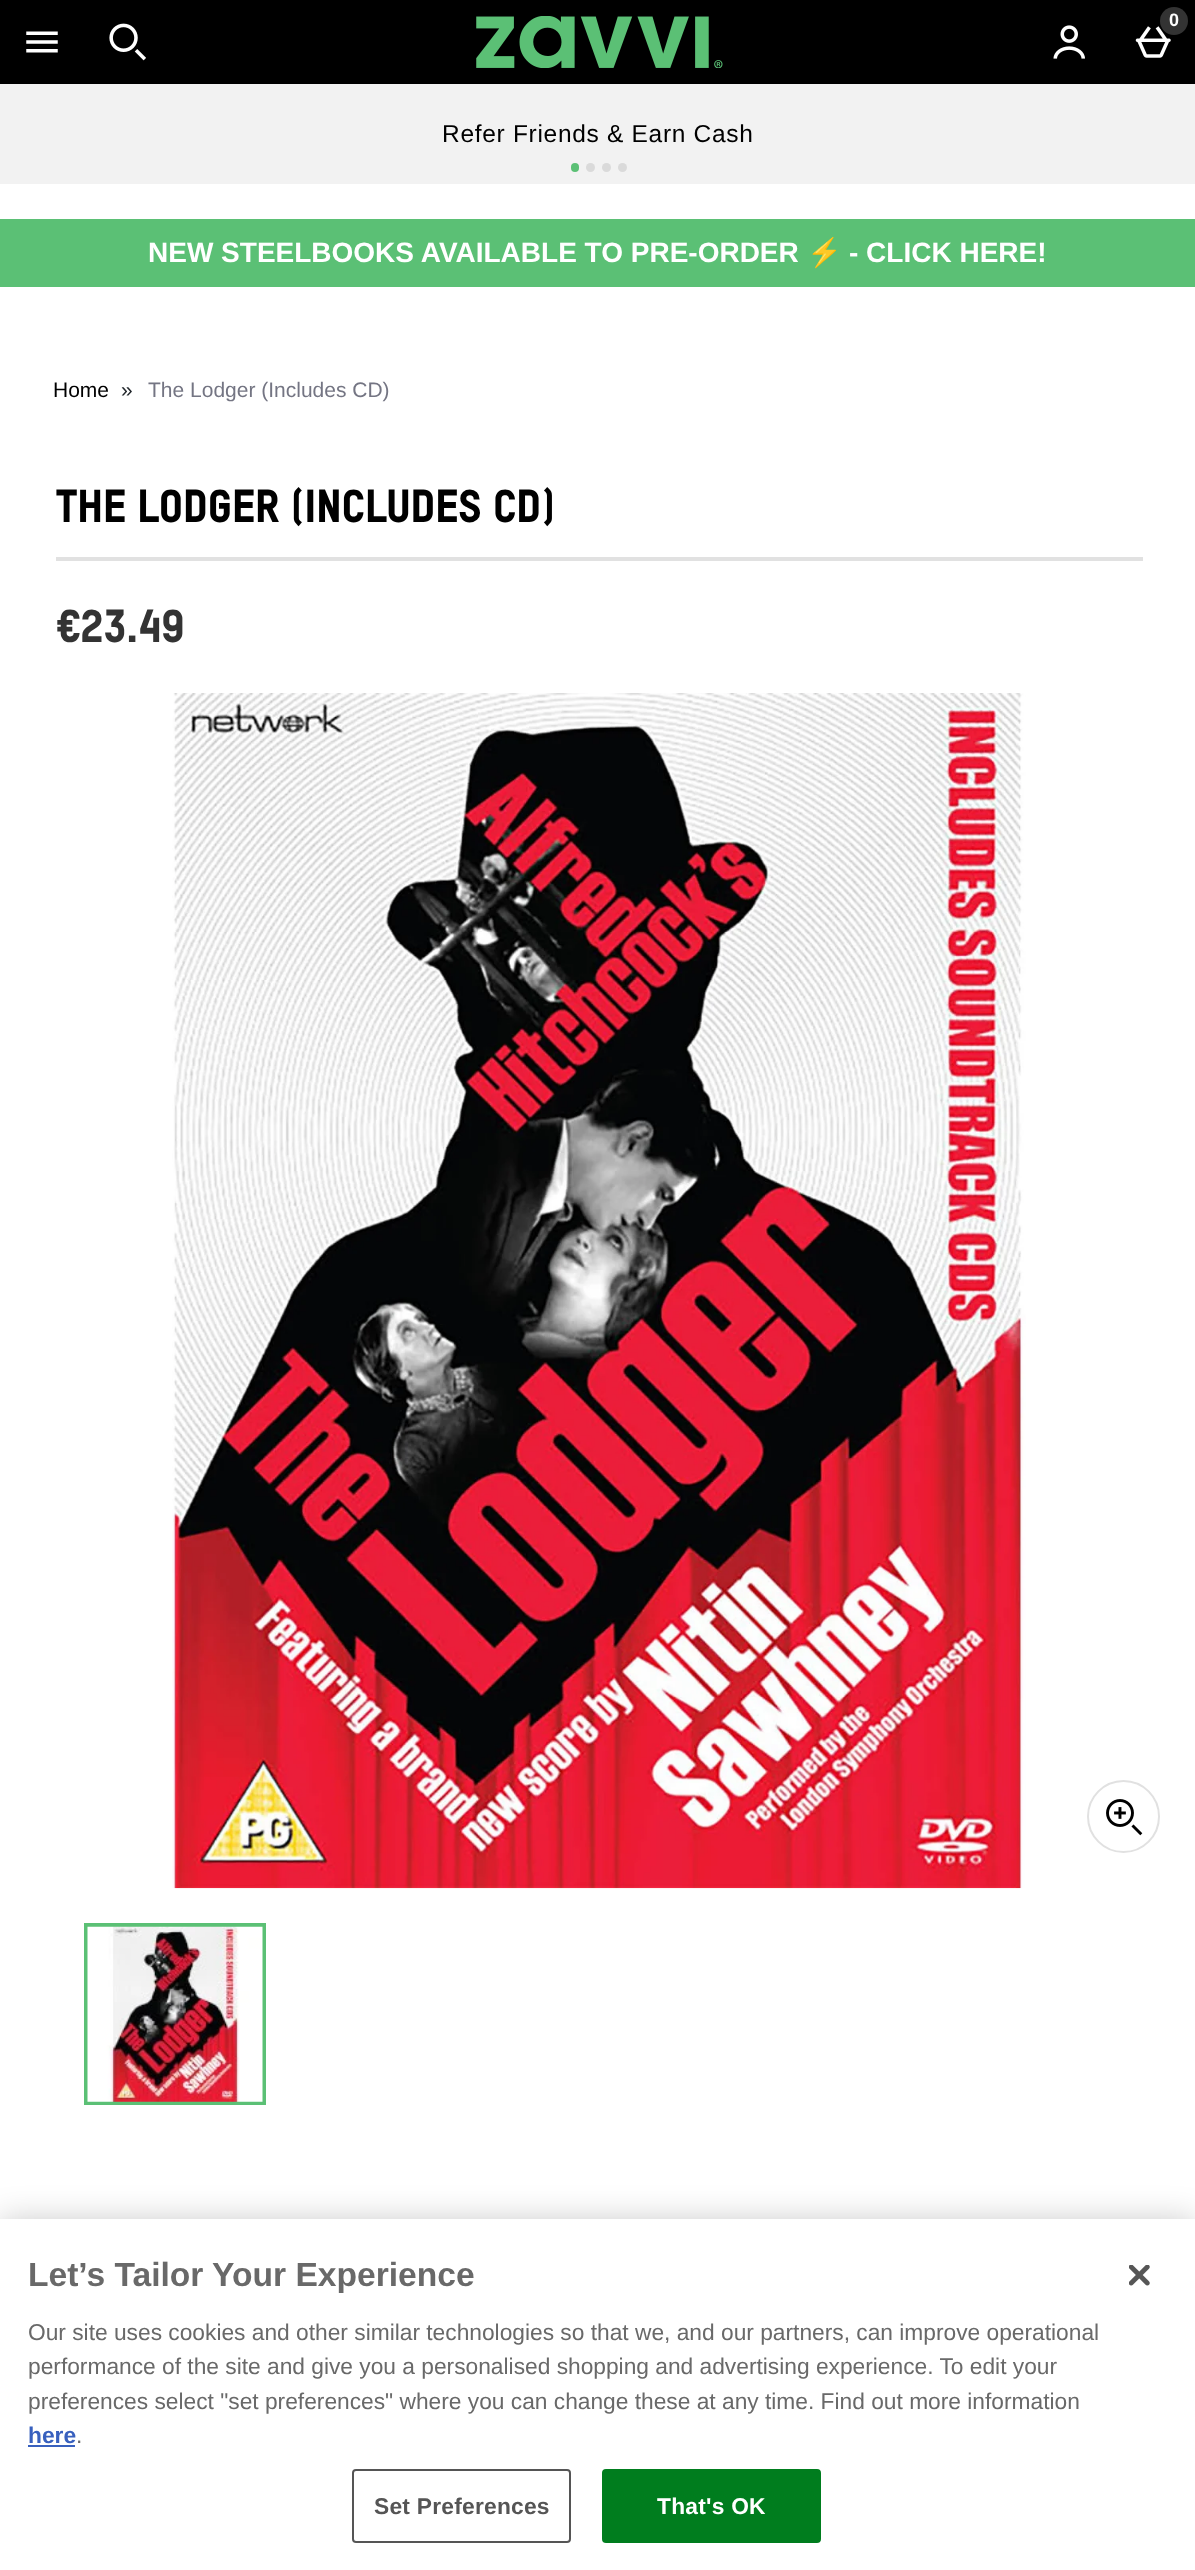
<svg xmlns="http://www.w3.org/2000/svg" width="1195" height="2570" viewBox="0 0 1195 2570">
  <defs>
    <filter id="blur1" x="-50%" y="-200%" width="200%" height="500%"><feGaussianBlur stdDeviation="16"/></filter>
  </defs>
  <rect width="100%" height="100%" fill="#ffffff"/>
  <rect x="0" y="0" width="1195" height="84" fill="#000000"/>
  <image x="26" y="31" width="32" height="22" href="img1.png"/>
  <image x="109" y="23" width="37" height="38" href="img2.png"/>
  <image x="476" y="16" width="247" height="52" href="img3.png"/>
  <image x="1053" y="25" width="32" height="34" href="img4.png"/>
  <image x="1135" y="26" width="36" height="32" href="img5.png"/>
  <circle cx="1174" cy="21" r="14" fill="#333333"/>
  <text x="1169" y="26" font-family="Liberation Sans" font-size="18" font-weight="bold" fill="#ffffff">0</text>
  <rect x="0" y="84" width="1195" height="100" fill="#f2f2f2"/>
  <text x="442" y="142" font-family="Liberation Sans" font-size="24.5" letter-spacing="0.7" fill="#000000">Refer Friends &amp; Earn Cash</text>
  <rect x="571" y="163" width="8" height="9" rx="4" fill="#5bc075"/>
  <circle cx="590.5" cy="167.5" r="4.5" fill="#dadada"/>
  <circle cx="606.5" cy="167.5" r="4.5" fill="#dadada"/>
  <circle cx="622.5" cy="167.5" r="4.5" fill="#dadada"/>
  <rect x="0" y="219" width="1195" height="68" fill="#5bc075"/>
  <text x="148" y="262" font-family="Liberation Sans" font-size="28" font-weight="bold" fill="#ffffff">NEW STEELBOOKS AVAILABLE TO PRE-ORDER</text>
  <text x="807" y="262" font-family="Noto Color Emoji" font-size="28" font-weight="bold" fill="#ffffff">⚡</text>
  <text x="849" y="262" font-family="Liberation Sans" font-size="28" font-weight="bold" fill="#ffffff">- CLICK HERE!</text>
  <text x="53" y="397" font-family="Liberation Sans" font-size="21" fill="#000000">Home</text>
  <text x="121" y="397" font-family="Liberation Sans" font-size="21" fill="#22272c">»</text>
  <text x="148" y="397" font-family="Liberation Sans" font-size="21" fill="#747583">The Lodger (Includes CD)</text>
  <text x="56" y="522" font-family="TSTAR" font-size="45.5" font-weight="900" fill="#000000">THE LODGER (INCLUDES CD)</text>
  <rect x="56" y="557" width="1087" height="4" fill="#e1e1e1"/>
  <text x="56" y="642" font-family="TSTAR" font-size="45.5" font-weight="900" fill="#333333">€23.49</text>
  <image x="172" y="693" width="854" height="1196" href="img6.png"/>
  <circle cx="1123.5" cy="1816.5" r="35.5" fill="none" stroke="#e1e1e1" stroke-width="2"/>
  <image x="1106" y="1799" width="37" height="37" href="img7.png"/>
  <rect x="86" y="1925" width="178" height="178" fill="none" stroke="#5bc075" stroke-width="4"/>
  <image x="87" y="1926" width="176" height="176" href="img8.png"/>
  <rect x="0" y="2219" width="1195" height="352" fill="#000000" fill-opacity="0.2" filter="url(#blur1)"/>
  <rect x="0" y="2219" width="1195" height="351" fill="#ffffff"/>
  <text x="28" y="2286" font-family="Liberation Sans" font-size="33.6" font-weight="bold" fill="#696969">Let’s Tailor Your Experience</text>
  <text x="28" y="2340" font-family="Liberation Sans" font-size="22.75" fill="#696969">Our site uses cookies and other similar technologies so that we, and our partners, can improve operational</text>
  <text x="28" y="2374" font-family="Liberation Sans" font-size="22.75" fill="#696969">performance of the site and give you a personalised shopping and advertising experience. To edit your</text>
  <text x="28" y="2409" font-family="Liberation Sans" font-size="22.75" fill="#696969">preferences select "set preferences" where you can change these at any time. Find out more information</text>
  <text x="28" y="2443" font-family="Liberation Sans" font-size="22.75" font-weight="bold" fill="#3860be">here</text>
  <rect x="28" y="2445" width="47" height="2" fill="#3860be"/>
  <text x="76" y="2443" font-family="Liberation Sans" font-size="22.75" fill="#696969">.</text>
  <rect x="353" y="2470" width="217" height="72" rx="3" fill="none" stroke="#555555" stroke-width="2"/>
  <text x="374" y="2514" font-family="Liberation Sans" font-size="22.75" font-weight="bold" letter-spacing="0.25" fill="#555555">Set Preferences</text>
  <rect x="603" y="2470" width="217" height="72" rx="3" fill="#007d1e" stroke="#007d1e" stroke-width="2"/>
  <text x="657" y="2514" font-family="Liberation Sans" font-size="22.75" font-weight="bold" letter-spacing="0.25" fill="#ffffff">That's OK</text>
  <image x="1129" y="2265" width="21" height="21" href="img9.png"/>
</svg>
